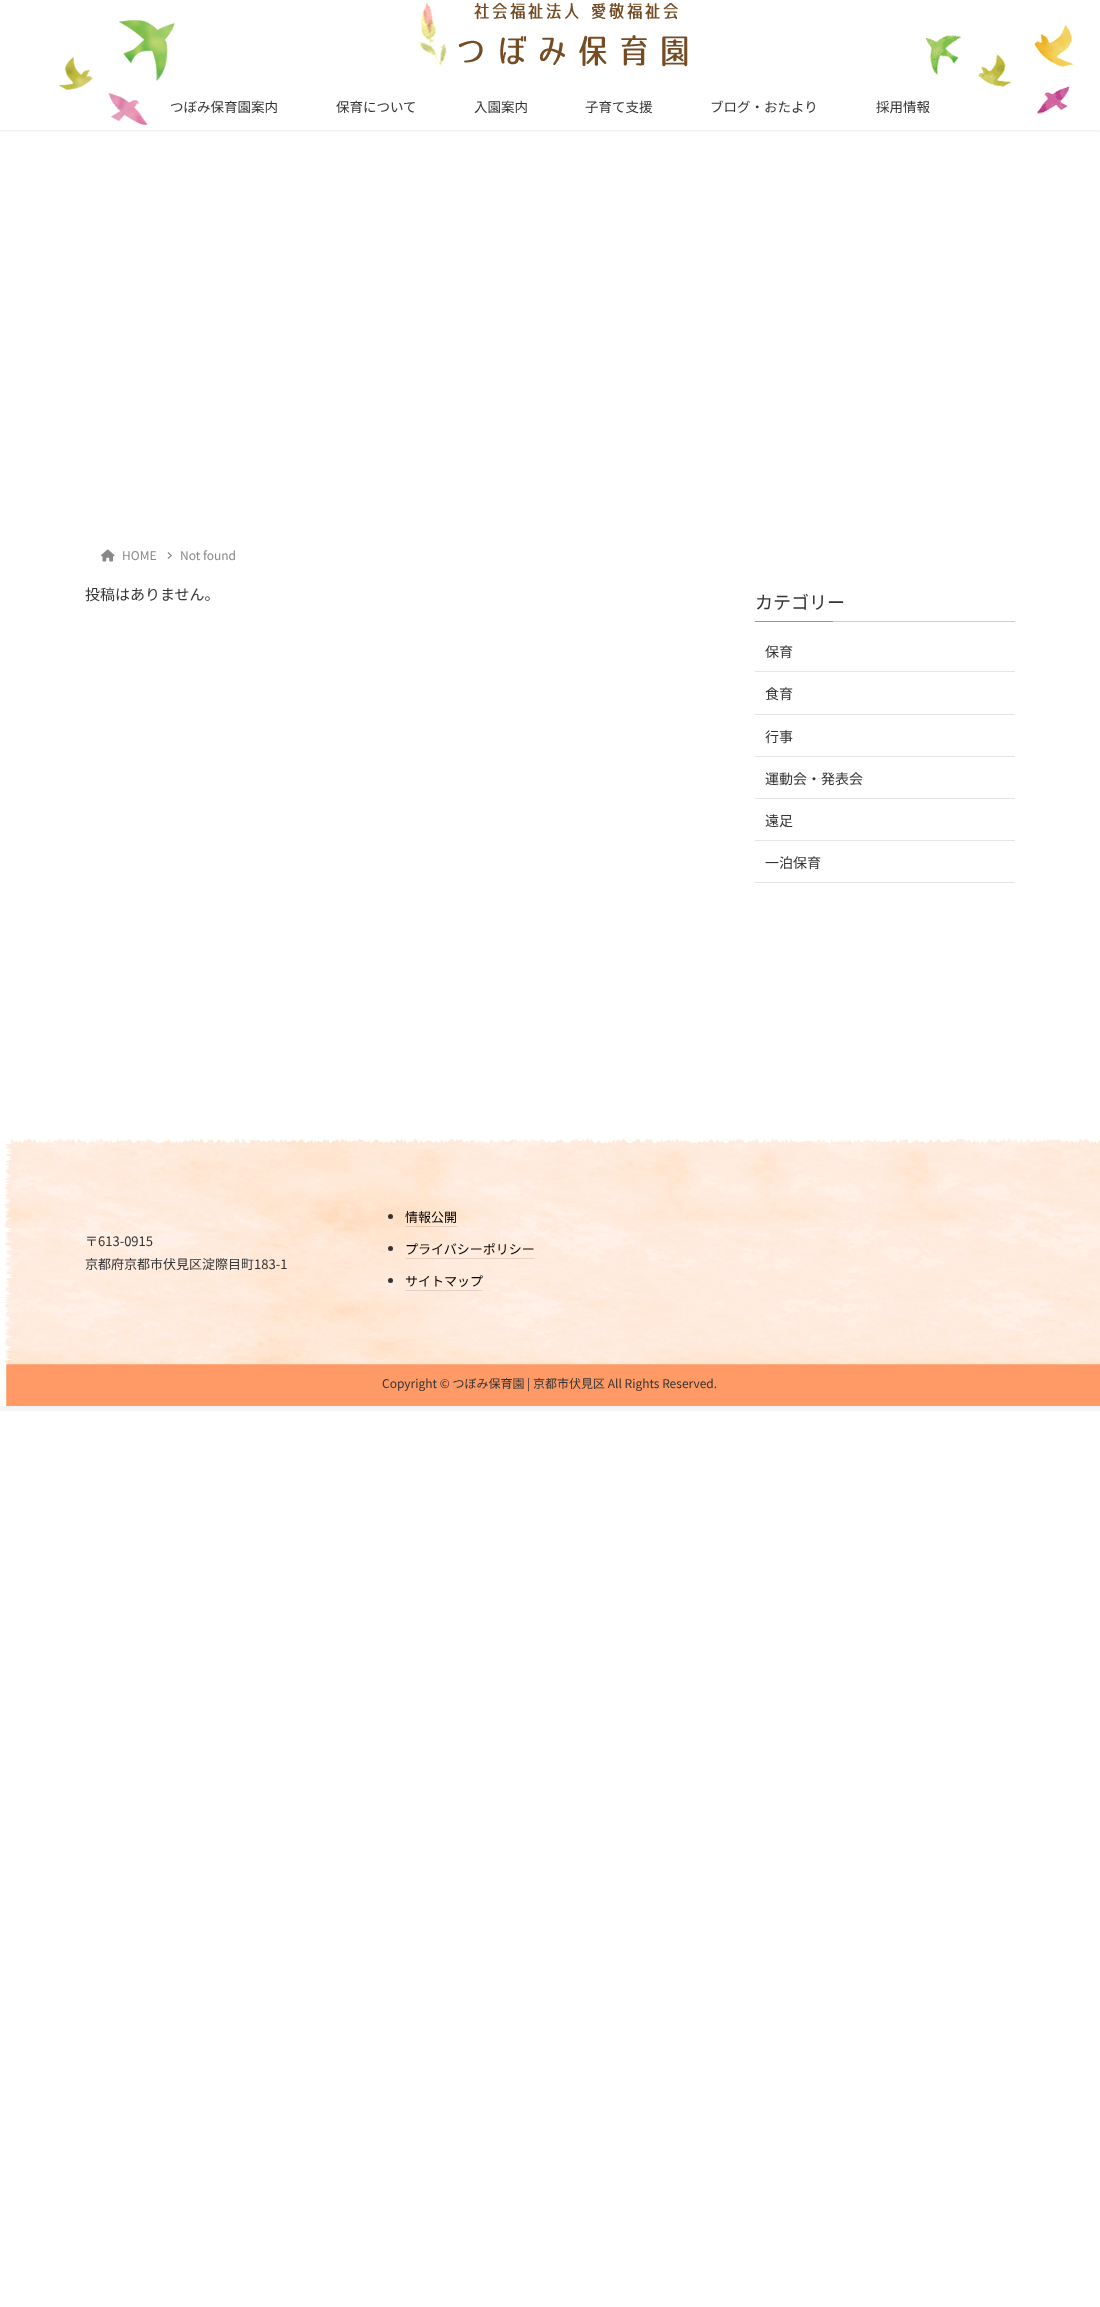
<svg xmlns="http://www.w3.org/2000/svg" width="1100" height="2307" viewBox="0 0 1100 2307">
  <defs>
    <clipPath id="clip1"><rect x="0" y="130" width="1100" height="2"/></clipPath>
    <filter id="blur1" x="-50%" y="-200%" width="200%" height="500%"><feGaussianBlur stdDeviation="1"/></filter>
  </defs>
  <rect width="100%" height="100%" fill="#ffffff"/>
  <g clip-path="url(#clip1)">
    <rect x="-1" y="0" width="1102" height="132" fill="#000000" fill-opacity="0.05" filter="url(#blur1)"/>
  </g>
  <image x="58" y="20" width="1016" height="105" href="img1.png"/>
  <image x="417" y="2" width="271" height="65" href="img2.png"/>
  <text x="170" y="112" font-family="Noto Sans JP" font-size="13.5" fill="#333333">つぼみ保育園案内</text>
  <text x="336" y="112" font-family="Noto Sans JP" font-size="13.5" fill="#333333">保育について</text>
  <text x="474" y="112" font-family="Noto Sans JP" font-size="13.5" fill="#333333">入園案内</text>
  <text x="585" y="112" font-family="Noto Sans JP" font-size="13.5" fill="#333333">子育て支援</text>
  <text x="710" y="112" font-family="Noto Sans JP" font-size="13.5" fill="#333333">ブログ・おたより</text>
  <text x="876" y="112" font-family="Noto Sans JP" font-size="13.5" fill="#333333">採用情報</text>
  <image x="101" y="549" width="14" height="13" href="img3.png"/>
  <text x="122" y="560" font-family="Noto Sans JP" font-size="12" fill="#888888">HOME</text>
  <path d="M168.5 552L172 555.5L171 556L167.5 553Z" fill="#888888"/>
  <path d="M171 555L172 555.5L168.5 559L167.5 558Z" fill="#888888"/>
  <text x="180" y="560" font-family="Noto Sans JP" font-size="12" fill="#888888">Not found</text>
  <text x="85" y="600" font-family="Noto Sans JP" font-size="15" fill="#333333">投稿はありません。</text>
  <rect x="833" y="621" width="182" height="1" fill="#cccccc"/>
  <text x="755" y="609" font-family="Noto Sans JP" font-size="18" fill="#333333">カテゴリー</text>
  <rect x="755" y="621" width="78" height="1" fill="#e58032"/>
  <rect x="755" y="671" width="260" height="1" fill="#e5e5e5"/>
  <text x="765" y="657" font-family="Noto Sans JP" font-size="14" fill="#333333">保育</text>
  <rect x="755" y="714" width="260" height="1" fill="#e5e5e5"/>
  <text x="765" y="699" font-family="Noto Sans JP" font-size="14" fill="#333333">食育</text>
  <rect x="755" y="756" width="260" height="1" fill="#e5e5e5"/>
  <text x="765" y="742" font-family="Noto Sans JP" font-size="14" fill="#333333">行事</text>
  <rect x="755" y="798" width="260" height="1" fill="#e5e5e5"/>
  <text x="765" y="784" font-family="Noto Sans JP" font-size="14" fill="#333333">運動会・発表会</text>
  <rect x="755" y="840" width="260" height="1" fill="#e5e5e5"/>
  <text x="765" y="826" font-family="Noto Sans JP" font-size="14" fill="#333333">遠足</text>
  <rect x="755" y="882" width="260" height="1" fill="#e5e5e5"/>
  <text x="765" y="868" font-family="Noto Sans JP" font-size="14" fill="#333333">一泊保育</text>
  <rect x="0" y="1406" width="1100" height="5" fill="#f6f6f6"/>
  <image x="0" y="1138" width="1100" height="268" href="img4.png"/>
  <text x="85" y="1246" font-family="Noto Sans JP" font-size="13" fill="#333333">〒613-0915</text>
  <text x="85" y="1269" font-family="Noto Sans JP" font-size="13" fill="#333333">京都府京都市伏見区淀際目町183-1</text>
  <circle cx="390.5" cy="1216.5" r="2.5" fill="#333333"/>
  <text x="405" y="1222" font-family="Noto Sans JP" font-size="13" fill="#000000">情報公開</text>
  <rect x="405" y="1226" width="52" height="1" fill="#000000" fill-opacity="0.1"/>
  <circle cx="390.5" cy="1248.5" r="2.5" fill="#333333"/>
  <text x="405" y="1254" font-family="Noto Sans JP" font-size="13" fill="#000000">プライバシーポリシー</text>
  <rect x="405" y="1258" width="130" height="1" fill="#000000" fill-opacity="0.1"/>
  <circle cx="390.5" cy="1280.5" r="2.5" fill="#333333"/>
  <text x="405" y="1286" font-family="Noto Sans JP" font-size="13" fill="#000000">サイトマップ</text>
  <rect x="405" y="1290" width="78" height="1" fill="#000000" fill-opacity="0.1"/>
  <text x="382" y="1388" font-family="Noto Sans JP" font-size="12" fill="#333333">Copyright © つぼみ保育園 | 京都市伏見区 All Rights Reserved.</text>
</svg>
